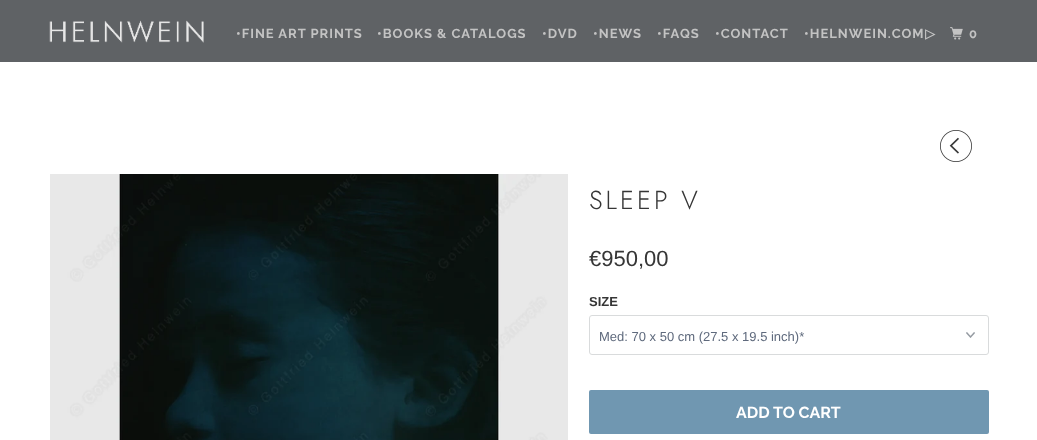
<svg xmlns="http://www.w3.org/2000/svg" width="1037" height="440" viewBox="0 0 1037 440">
  <rect width="100%" height="100%" fill="#ffffff"/>
  <rect x="0" y="0" width="1037" height="62" fill="#5f6265"/>
  <image x="49" y="20" width="155" height="23" href="img1.png"/>
  <text x="236" y="38" font-family="Raleway" font-size="13" font-weight="bold" letter-spacing="1" fill="#c3c3c3">•FINE ART PRINTS</text>
  <text x="377" y="38" font-family="Raleway" font-size="13" font-weight="bold" letter-spacing="1" fill="#c3c3c3">•BOOKS &amp; CATALOGS</text>
  <text x="542" y="38" font-family="Raleway" font-size="13" font-weight="bold" letter-spacing="1" fill="#c3c3c3">•DVD</text>
  <text x="593" y="38" font-family="Raleway" font-size="13" font-weight="bold" letter-spacing="1" fill="#c3c3c3">•NEWS</text>
  <text x="657" y="38" font-family="Raleway" font-size="13" font-weight="bold" letter-spacing="1" fill="#c3c3c3">•FAQS</text>
  <text x="715" y="38" font-family="Raleway" font-size="13" font-weight="bold" letter-spacing="1" fill="#c3c3c3">•CONTACT</text>
  <text x="804" y="38" font-family="Raleway" font-size="13" font-weight="bold" letter-spacing="1" fill="#c3c3c3">•HELNWEIN.COM</text>
  <text x="925" y="38" font-family="DejaVu Sans" font-size="13" font-weight="bold" letter-spacing="1" fill="#c3c3c3">▷</text>
  <image x="950" y="27" width="13" height="13" href="img2.png"/>
  <text x="969" y="38" font-family="Raleway" font-size="13" font-weight="bold" letter-spacing="1" fill="#c3c3c3">0</text>
  <image x="940" y="130" width="32" height="32" href="img3.png"/>
  <image x="50" y="174" width="518" height="266" href="img4.png"/>
  <text x="589" y="209" font-family="Jost" font-size="26" font-weight="300" letter-spacing="3" fill="#363636">SLEEP V</text>
  <text x="589" y="266" font-family="Liberation Sans" font-size="22" fill="#363636">€950,00</text>
  <text x="589" y="306" font-family="Liberation Sans" font-size="13" font-weight="bold" fill="#363636">SIZE</text>
  <image x="966" y="332" width="9" height="6" href="img5.png"/>
  <rect x="589.5" y="315.5" width="399" height="39" rx="2.5" fill="none" stroke="#d9dbdc"/>
  <text x="599" y="341" font-family="Liberation Sans" font-size="13" fill="#5f6a7d">Med: 70 x 50 cm (27.5 x 19.5 inch)*</text>
  <rect x="589" y="390" width="400" height="44" rx="2" fill="#7097b1"/>
  <text x="736" y="418" font-family="Raleway" font-size="16" font-weight="bold" fill="#ffffff">ADD TO CART</text>
</svg>
